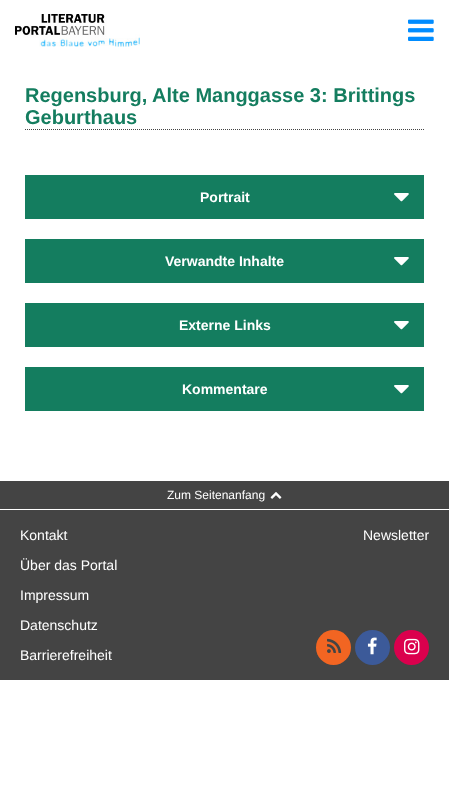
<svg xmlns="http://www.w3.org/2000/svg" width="449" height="800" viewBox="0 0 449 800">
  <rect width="100%" height="100%" fill="#ffffff"/>
  <image x="15" y="14" width="125" height="33" href="img1.png"/>
  <image x="408" y="19" width="26" height="22" href="img2.png"/>
  <path d="M25 129.5H424" fill="none" stroke="#444444" stroke-dasharray="1 1"/>
  <text x="25" y="102" font-family="Liberation Sans" font-size="20" font-weight="bold" fill="#147d5f">Regensburg, Alte Manggasse 3: Brittings</text>
  <text x="25" y="124" font-family="Liberation Sans" font-size="20" font-weight="bold" fill="#147d5f">Geburthaus</text>
  <rect x="25" y="175" width="399" height="44" fill="#147d5f"/>
  <text x="200" y="202" font-family="Liberation Sans" font-size="14" font-weight="bold" fill="#ffffff">Portrait</text>
  <image x="394" y="193" width="15" height="9" href="img3.png"/>
  <rect x="25" y="239" width="399" height="44" fill="#147d5f"/>
  <text x="165" y="266" font-family="Liberation Sans" font-size="14" font-weight="bold" fill="#ffffff">Verwandte Inhalte</text>
  <image x="394" y="257" width="15" height="9" href="img3.png"/>
  <rect x="25" y="303" width="399" height="44" fill="#147d5f"/>
  <text x="179" y="330" font-family="Liberation Sans" font-size="14" font-weight="bold" fill="#ffffff">Externe Links</text>
  <image x="394" y="321" width="15" height="9" href="img3.png"/>
  <rect x="25" y="367" width="399" height="44" fill="#147d5f"/>
  <text x="182" y="394" font-family="Liberation Sans" font-size="14" font-weight="bold" fill="#ffffff">Kommentare</text>
  <image x="394" y="385" width="15" height="9" href="img3.png"/>
  <rect x="0" y="481" width="449" height="28" fill="#444444"/>
  <text x="167" y="499" font-family="Liberation Sans" font-size="12" fill="#ffffff">Zum Seitenanfang</text>
  <image x="270" y="492" width="12" height="7" href="img4.png"/>
  <rect x="0" y="510" width="449" height="170" fill="#444444"/>
  <text x="20" y="540" font-family="Liberation Sans" font-size="14" fill="#ffffff">Kontakt</text>
  <text x="20" y="570" font-family="Liberation Sans" font-size="14" fill="#ffffff">Über das Portal</text>
  <text x="20" y="600" font-family="Liberation Sans" font-size="14" fill="#ffffff">Impressum</text>
  <text x="20" y="630" font-family="Liberation Sans" font-size="14" fill="#ffffff">Datenschutz</text>
  <text x="20" y="660" font-family="Liberation Sans" font-size="14" fill="#ffffff">Barrierefreiheit</text>
  <text x="363" y="540" font-family="Liberation Sans" font-size="14" fill="#ffffff">Newsletter</text>
  <circle cx="333.5" cy="647.5" r="17.5" fill="#f26522"/>
  <image x="327" y="638" width="15" height="15" href="img5.png"/>
  <circle cx="372.5" cy="647.5" r="17.5" fill="#3c5a99"/>
  <image x="367" y="637" width="10" height="18" href="img6.png"/>
  <circle cx="411.5" cy="647.5" r="17.5" fill="#db004d"/>
  <image x="404" y="638" width="16" height="17" href="img7.png"/>
</svg>
